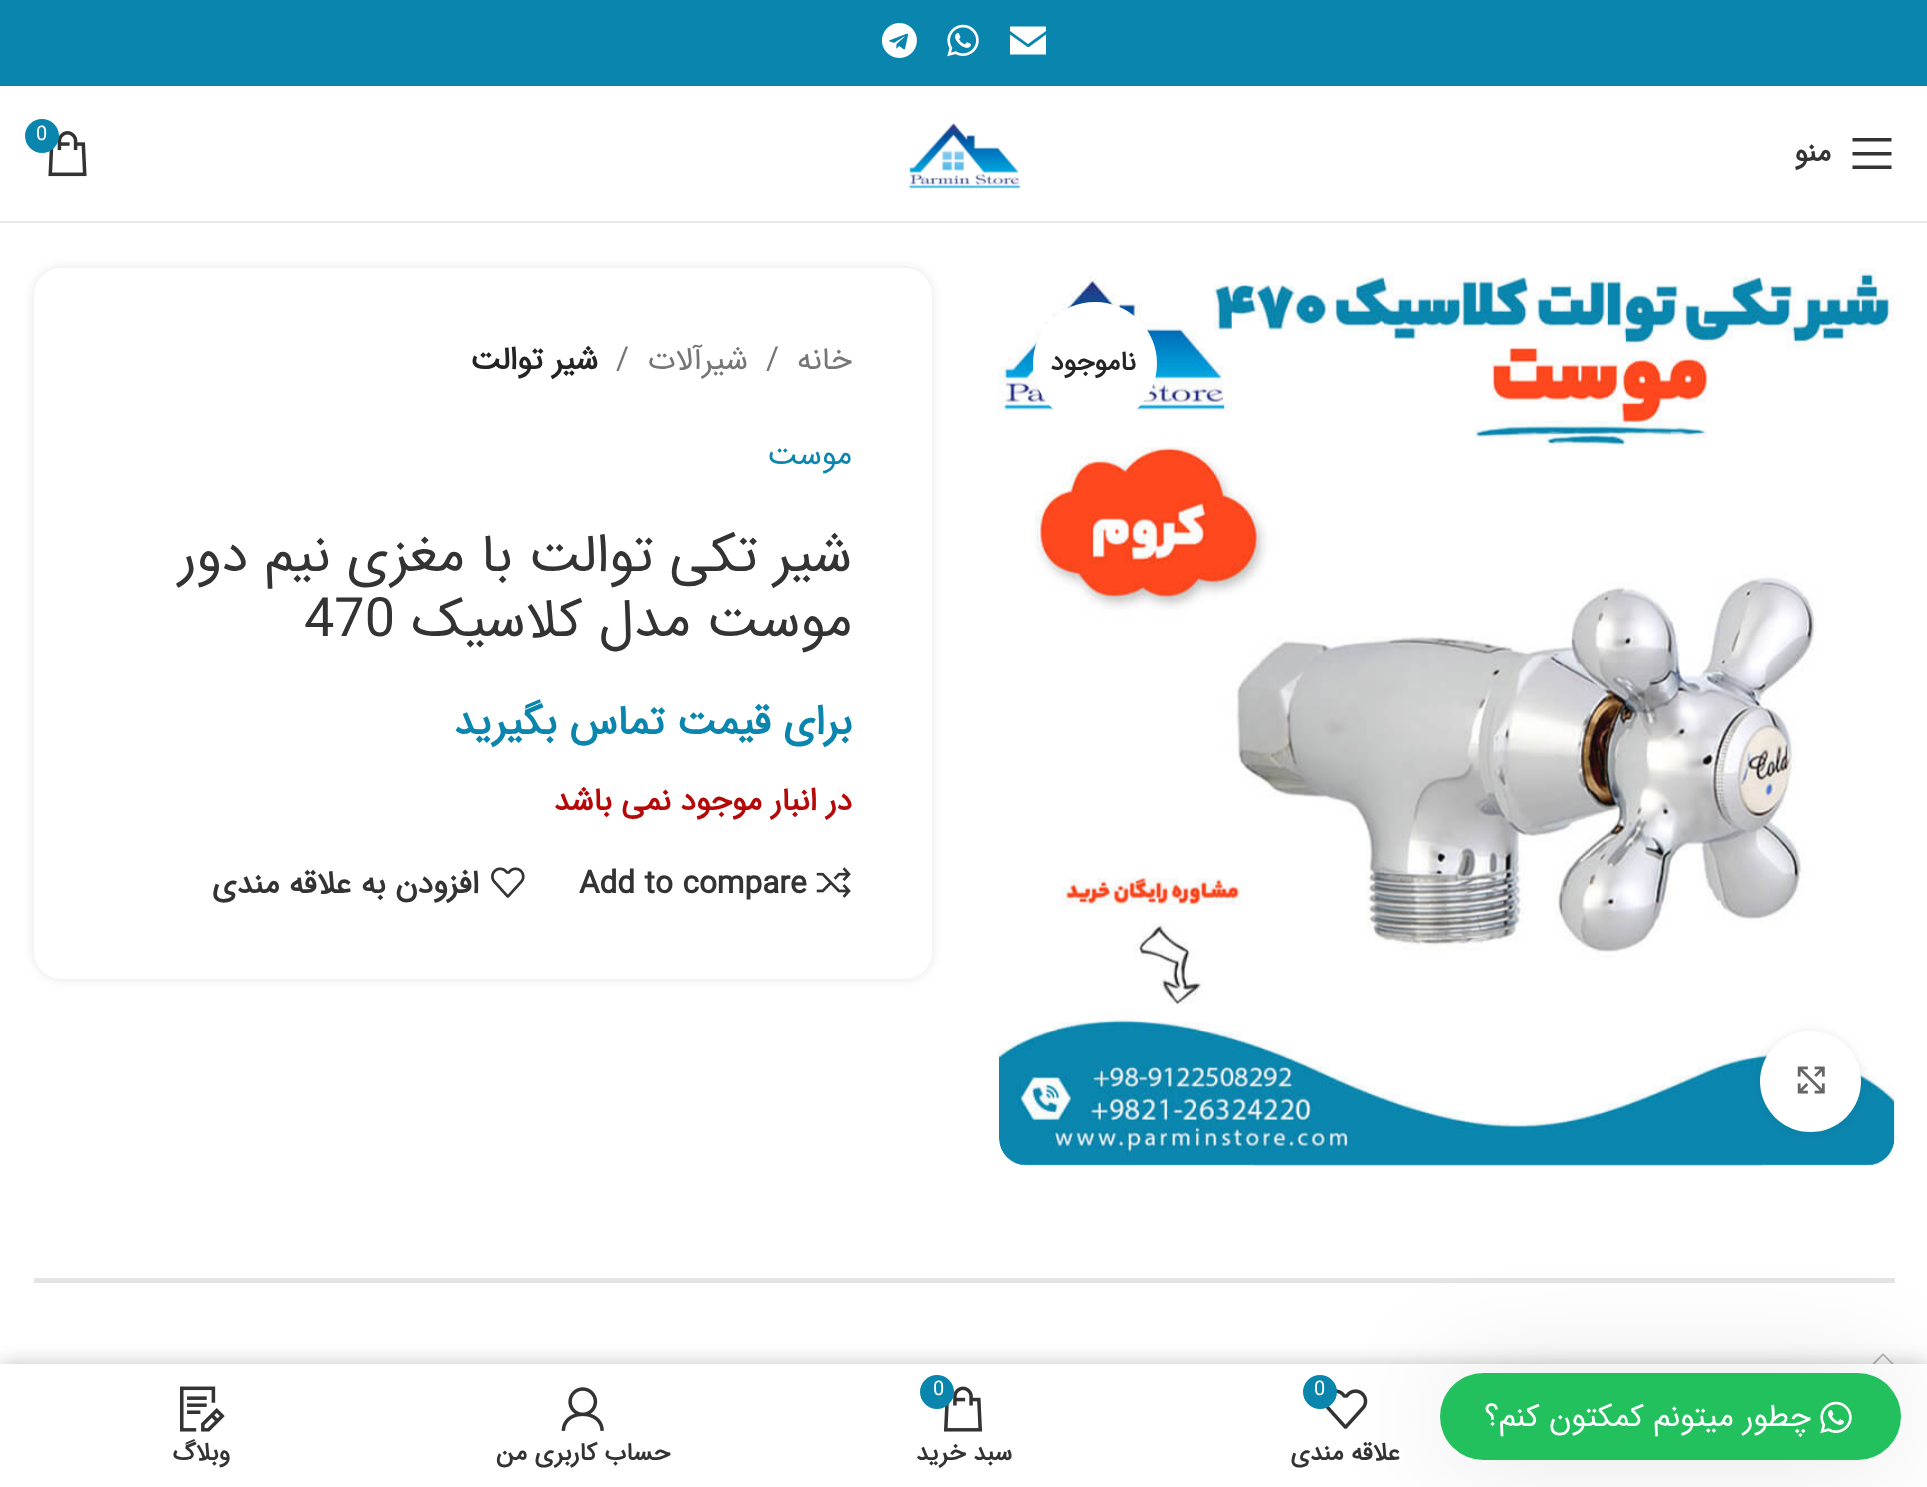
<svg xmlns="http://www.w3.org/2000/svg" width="1927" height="1487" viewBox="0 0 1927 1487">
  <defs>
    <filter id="blur1" x="-50%" y="-200%" width="200%" height="500%"><feGaussianBlur stdDeviation="5.5"/></filter>
    <filter id="blur2" x="-50%" y="-200%" width="200%" height="500%"><feGaussianBlur stdDeviation="10"/></filter>
    <filter id="blur3" x="-50%" y="-200%" width="200%" height="500%"><feGaussianBlur stdDeviation="56"/></filter>
  </defs>
  <rect width="100%" height="100%" fill="#ffffff"/>
  <rect x="0" y="0" width="1927" height="86" fill="#0a86ae"/>
  <path d="M1046 26.5H1010V31L1028 44L1046 31ZM1046 34.5L1029 47H1027.5L1010 34.5V54.5H1046Z" fill="#ffffff"/>
  <image x="947" y="24" width="32" height="33" href="img1.png"/>
  <image x="882" y="23" width="35" height="35" href="img2.png"/>
  <rect x="0" y="221" width="1927" height="2" fill="#e8e8e8"/>
  <image x="908" y="123" width="113" height="66" href="img3.png"/>
  <image x="48" y="131" width="39" height="46" href="img4.png"/>
  <circle cx="42" cy="136" r="17" fill="#0a86ae"/>
  <text x="36" y="140" font-family="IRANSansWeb" font-size="20" fill="#ffffff">0</text>
  <path d="M1852.5 141.5H1891.5V138H1852.5ZM1852.5 155.5H1891.5V152H1852.5ZM1852.5 169H1891.5V165.5H1852.5Z" fill="#333333"/>
  <text x="1831" y="161" font-family="IRANSansWeb" font-size="29" font-weight="bold" direction="rtl" fill="#333333">منو</text>
  <image x="999" y="268" width="896" height="898" href="img5.png"/>
  <rect x="1033" y="302" width="124" height="123" rx="61.5" fill="#ffffff"/>
  <text x="1136" y="370" font-family="IRANSansWeb" font-size="27" font-weight="bold" direction="rtl" fill="#242424">ناموجود</text>
  <rect x="1760" y="1031" width="101" height="101" rx="50.5" fill="#000000" fill-opacity="0.08" filter="url(#blur1)"/>
  <circle cx="1810.5" cy="1081.5" r="50.5" fill="#ffffff"/>
  <image x="1797" y="1066" width="28" height="28" href="img6.png"/>
  <rect x="34" y="268" width="898" height="711" rx="27" fill="#000000" fill-opacity="0.1" filter="url(#blur1)"/>
  <rect x="34" y="268" width="898" height="711" rx="27" fill="#ffffff"/>
  <text x="852" y="369" font-family="IRANSansWeb" font-size="31.5" direction="rtl" fill="#767676">خانه</text>
  <text x="766" y="369" font-family="IRANSansWeb" font-size="31.5" fill="#767676">/</text>
  <text x="748" y="369" font-family="IRANSansWeb" font-size="31.5" direction="rtl" fill="#767676">شیرآلات</text>
  <text x="616" y="369" font-family="IRANSansWeb" font-size="31.5" fill="#767676">/</text>
  <text x="598" y="369" font-family="IRANSansWeb" font-size="31.5" font-weight="bold" direction="rtl" fill="#242424">شیر توالت</text>
  <text x="852" y="464" font-family="IRANSansWeb" font-size="31.5" direction="rtl" fill="#0a86ae">موست</text>
  <text x="852" y="571" font-family="IRANSansWeb" font-size="54" direction="rtl" fill="#333333">شیر تکی توالت با مغزی نیم دور</text>
  <text x="852" y="636" font-family="IRANSansWeb" font-size="54" direction="rtl" fill="#333333">موست مدل کلاسیک</text>
  <text x="304" y="636" font-family="IRANSansWeb" font-size="54" fill="#333333">470</text>
  <text x="852" y="734" font-family="IRANSansWeb" font-size="41" font-weight="bold" direction="rtl" fill="#0a86ae">برای قیمت تماس بگیرید</text>
  <text x="852" y="810" font-family="IRANSansWeb" font-size="31.5" font-weight="bold" direction="rtl" fill="#b50808">در انبار موجود نمی باشد</text>
  <image x="816" y="867" width="35" height="31" href="img7.png"/>
  <text x="579" y="893" font-family="IRANSansWeb" font-size="31.5" font-weight="bold" fill="#333333">Add to compare</text>
  <image x="491" y="867" width="34" height="31" href="img8.png"/>
  <text x="479" y="893" font-family="IRANSansWeb" font-size="31.5" font-weight="bold" direction="rtl" fill="#333333">افزودن به علاقه مندی</text>
  <rect x="34" y="1278" width="1861" height="5" fill="#e4e4e4"/>
  <path d="M1874 1365L1883 1355.5L1892.5 1365L1893.5 1363.5L1883 1353L1872.5 1363.5Z" fill="#bbbbbb"/>
  <rect x="0" y="1364" width="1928" height="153" fill="#000000" fill-opacity="0.12" filter="url(#blur2)"/>
  <rect x="0" y="1364" width="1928" height="123" fill="#000000" fill-opacity="0.12" filter="url(#blur2)"/>
  <rect x="0" y="1364" width="1927" height="123" fill="#ffffff"/>
  <image x="1325" y="1389" width="43" height="40" href="img10.png"/>
  <circle cx="1320" cy="1392" r="17" fill="#0a86ae"/>
  <rect x="1440" y="1373" width="461" height="87" rx="43.5" fill="#000000" fill-opacity="0.1" filter="url(#blur3)"/>
  <rect x="1440" y="1373" width="461" height="87" rx="43.5" fill="#22c15e"/>
  <image x="1820" y="1401" width="32" height="33" href="img9.png"/>
  <text x="1811" y="1426" font-family="IRANSansWeb" font-size="31.5" direction="rtl" fill="#ffffff">چطور میتونم کمکتون کنم؟</text>
  <text x="1314" y="1395" font-family="IRANSansWeb" font-size="20" fill="#ffffff">0</text>
  <text x="1400" y="1460" font-family="IRANSansWeb" font-size="24.75" font-weight="bold" direction="rtl" fill="#333333">علاقه مندی</text>
  <image x="943" y="1386" width="40" height="46" href="img11.png"/>
  <circle cx="937" cy="1392" r="17" fill="#0a86ae"/>
  <text x="933" y="1395" font-family="IRANSansWeb" font-size="20" fill="#ffffff">0</text>
  <text x="1012" y="1460" font-family="IRANSansWeb" font-size="24.75" font-weight="bold" direction="rtl" fill="#333333">سبد خرید</text>
  <image x="561" y="1387" width="43" height="44" href="img12.png"/>
  <text x="670" y="1460" font-family="IRANSansWeb" font-size="24.75" font-weight="bold" direction="rtl" fill="#333333">حساب کاربری من</text>
  <image x="180" y="1386" width="45" height="46" href="img13.png"/>
  <text x="230" y="1460" font-family="IRANSansWeb" font-size="24.75" font-weight="bold" direction="rtl" fill="#333333">وبلاگ</text>
</svg>
